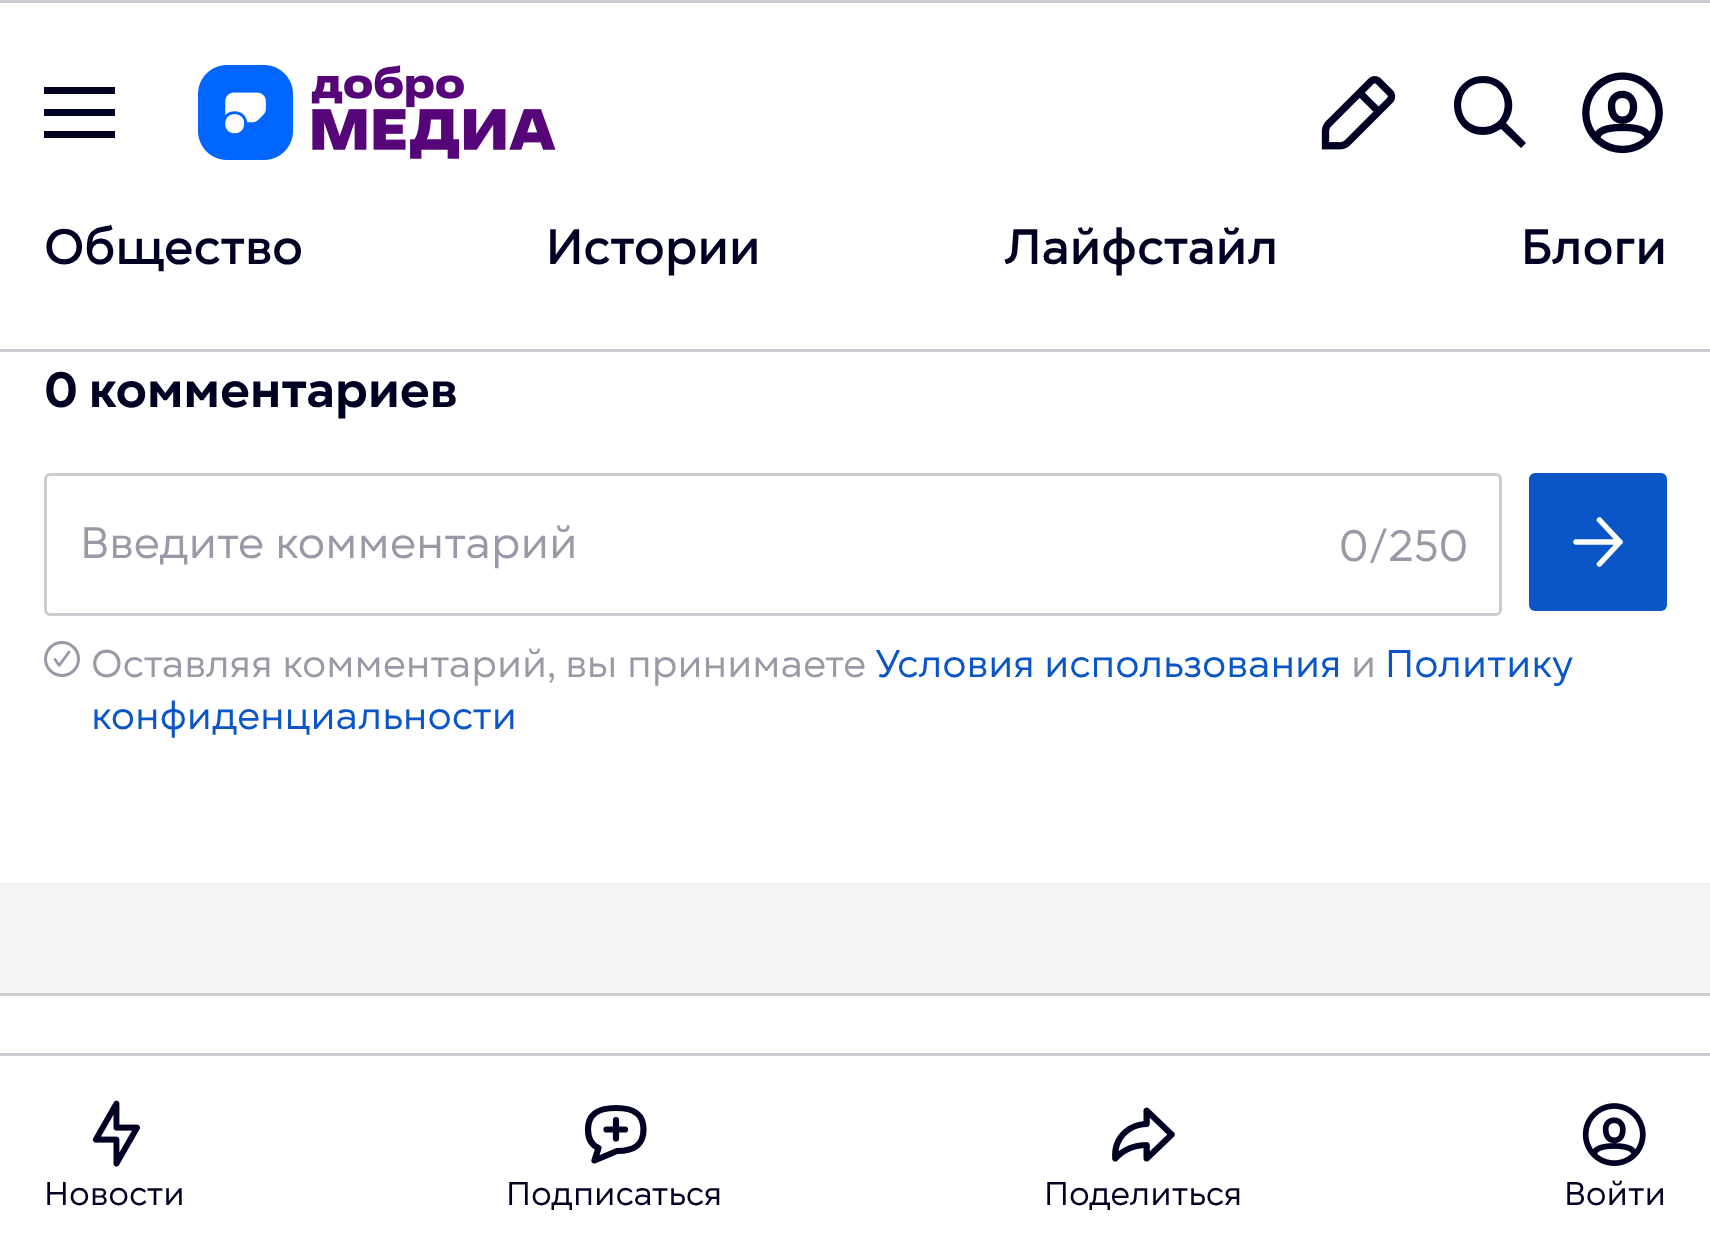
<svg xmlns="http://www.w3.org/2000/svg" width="1710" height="1255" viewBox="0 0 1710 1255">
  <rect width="100%" height="100%" fill="#f4f4f4"/>
  <rect x="0" y="3" width="1710" height="346" fill="#ffffff"/>
  <rect x="0" y="0" width="1710" height="3" fill="#ccccd3"/>
  <rect x="0" y="349" width="1710" height="3" fill="#ccccd3"/>
  <path d="M115 94V87H44V94ZM115 109V116H44V109ZM115 131V138H44V131Z" fill="#000022" fill-rule="evenodd"/>
  <image x="198" y="65" width="358" height="95" href="img1.png"/>
  <image x="1321" y="76" width="75" height="74" href="img2.png"/>
  <path d="M1483 76C1508 76 1521 105 1506 123L1526 143L1521 148L1501 129C1496 132 1490 135 1483 135C1467 135 1454 122 1454 105C1454 89 1467 76 1483 76ZM1483 83C1454 83 1454 127 1483 127C1512 127 1512 83 1483 83Z" fill="#000022"/>
  <image x="1582" y="72" width="81" height="82" href="img3.png"/>
  <text x="44" y="264" font-family="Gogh" font-size="49.5" font-weight="500" fill="#000022">Общество</text>
  <text x="546" y="264" font-family="Gogh" font-size="49.5" font-weight="500" fill="#000022">Истории</text>
  <text x="1004" y="264" font-family="Gogh" font-size="49.5" font-weight="500" fill="#000022">Лайфстайл</text>
  <text x="1521" y="264" font-family="Gogh" font-size="49.5" font-weight="500" fill="#000022">Блоги</text>
  <rect x="0" y="352" width="1710" height="531" fill="#ffffff"/>
  <text x="44" y="407" font-family="Gogh" font-size="49.5" font-weight="bold" fill="#000022">0 комментариев</text>
  <rect x="45.5" y="474.5" width="1455" height="140" rx="4.5" fill="none" stroke="#ccccd3" stroke-width="3"/>
  <text x="80" y="558" font-family="Gogh" font-size="44" fill="#9999a7">Введите комментарий</text>
  <text x="1339" y="561" font-family="Gogh" font-size="44" fill="#9999a7">0/250</text>
  <rect x="1529" y="473" width="138" height="138" rx="6" fill="#0b56c6"/>
  <path d="M1576 542H1620M1620 542L1599.5 520M1620 542L1599.5 564" fill="none" stroke="#ffffff" stroke-width="5.5" stroke-linecap="round" stroke-linejoin="round"/>
  <circle cx="62" cy="659" r="16.5" fill="none" stroke="#9999a7" stroke-width="3"/>
  <path d="M55 659.5L59 665H59.5L69 652" fill="none" stroke="#9999a7" stroke-width="2.8" stroke-linecap="round"/>
  <text x="91" y="677" font-family="Gogh" font-size="38.5" fill="#9999a7">Оставляя комментарий, вы принимаете</text>
  <text x="875" y="677" font-family="Gogh" font-size="38.5" fill="#0b56c6">Условия использования</text>
  <text x="1351" y="677" font-family="Gogh" font-size="38.5" fill="#9999a7">и</text>
  <text x="1385" y="677" font-family="Gogh" font-size="38.5" fill="#0b56c6">Политику</text>
  <text x="91" y="729" font-family="Gogh" font-size="38.5" fill="#0b56c6">конфиденциальности</text>
  <rect x="0" y="996" width="1710" height="57" fill="#ffffff"/>
  <rect x="0" y="993" width="1710" height="3" fill="#ccccd3"/>
  <rect x="0" y="1056" width="1710" height="199" fill="#ffffff"/>
  <rect x="0" y="1053" width="1710" height="3" fill="#ccccd3"/>
  <image x="92" y="1100" width="48" height="67" href="img4.png"/>
  <text x="44" y="1205" font-family="Gogh" font-size="33" fill="#000022">Новости</text>
  <path d="M616 1120V1138.5M625 1129.5H606.5M617 1151C635 1151 643.5 1144.5 643.5 1129.5C643.5 1114 634.5 1108 616 1108C597.5 1108 588 1114 588 1129.5C588 1139 591.5 1145 598.5 1148L594.5 1160.5Z" fill="none" stroke="#000022" stroke-width="6.2" stroke-linecap="round" stroke-linejoin="round"/>
  <text x="506" y="1205" font-family="Gogh" font-size="33" fill="#000022">Подписаться</text>
  <image x="1112" y="1107" width="63" height="55" href="img5.png"/>
  <text x="1044" y="1205" font-family="Gogh" font-size="33" fill="#000022">Поделиться</text>
  <image x="1582" y="1103" width="64" height="63" href="img6.png"/>
  <text x="1564" y="1205" font-family="Gogh" font-size="33" fill="#000022">Войти</text>
</svg>
